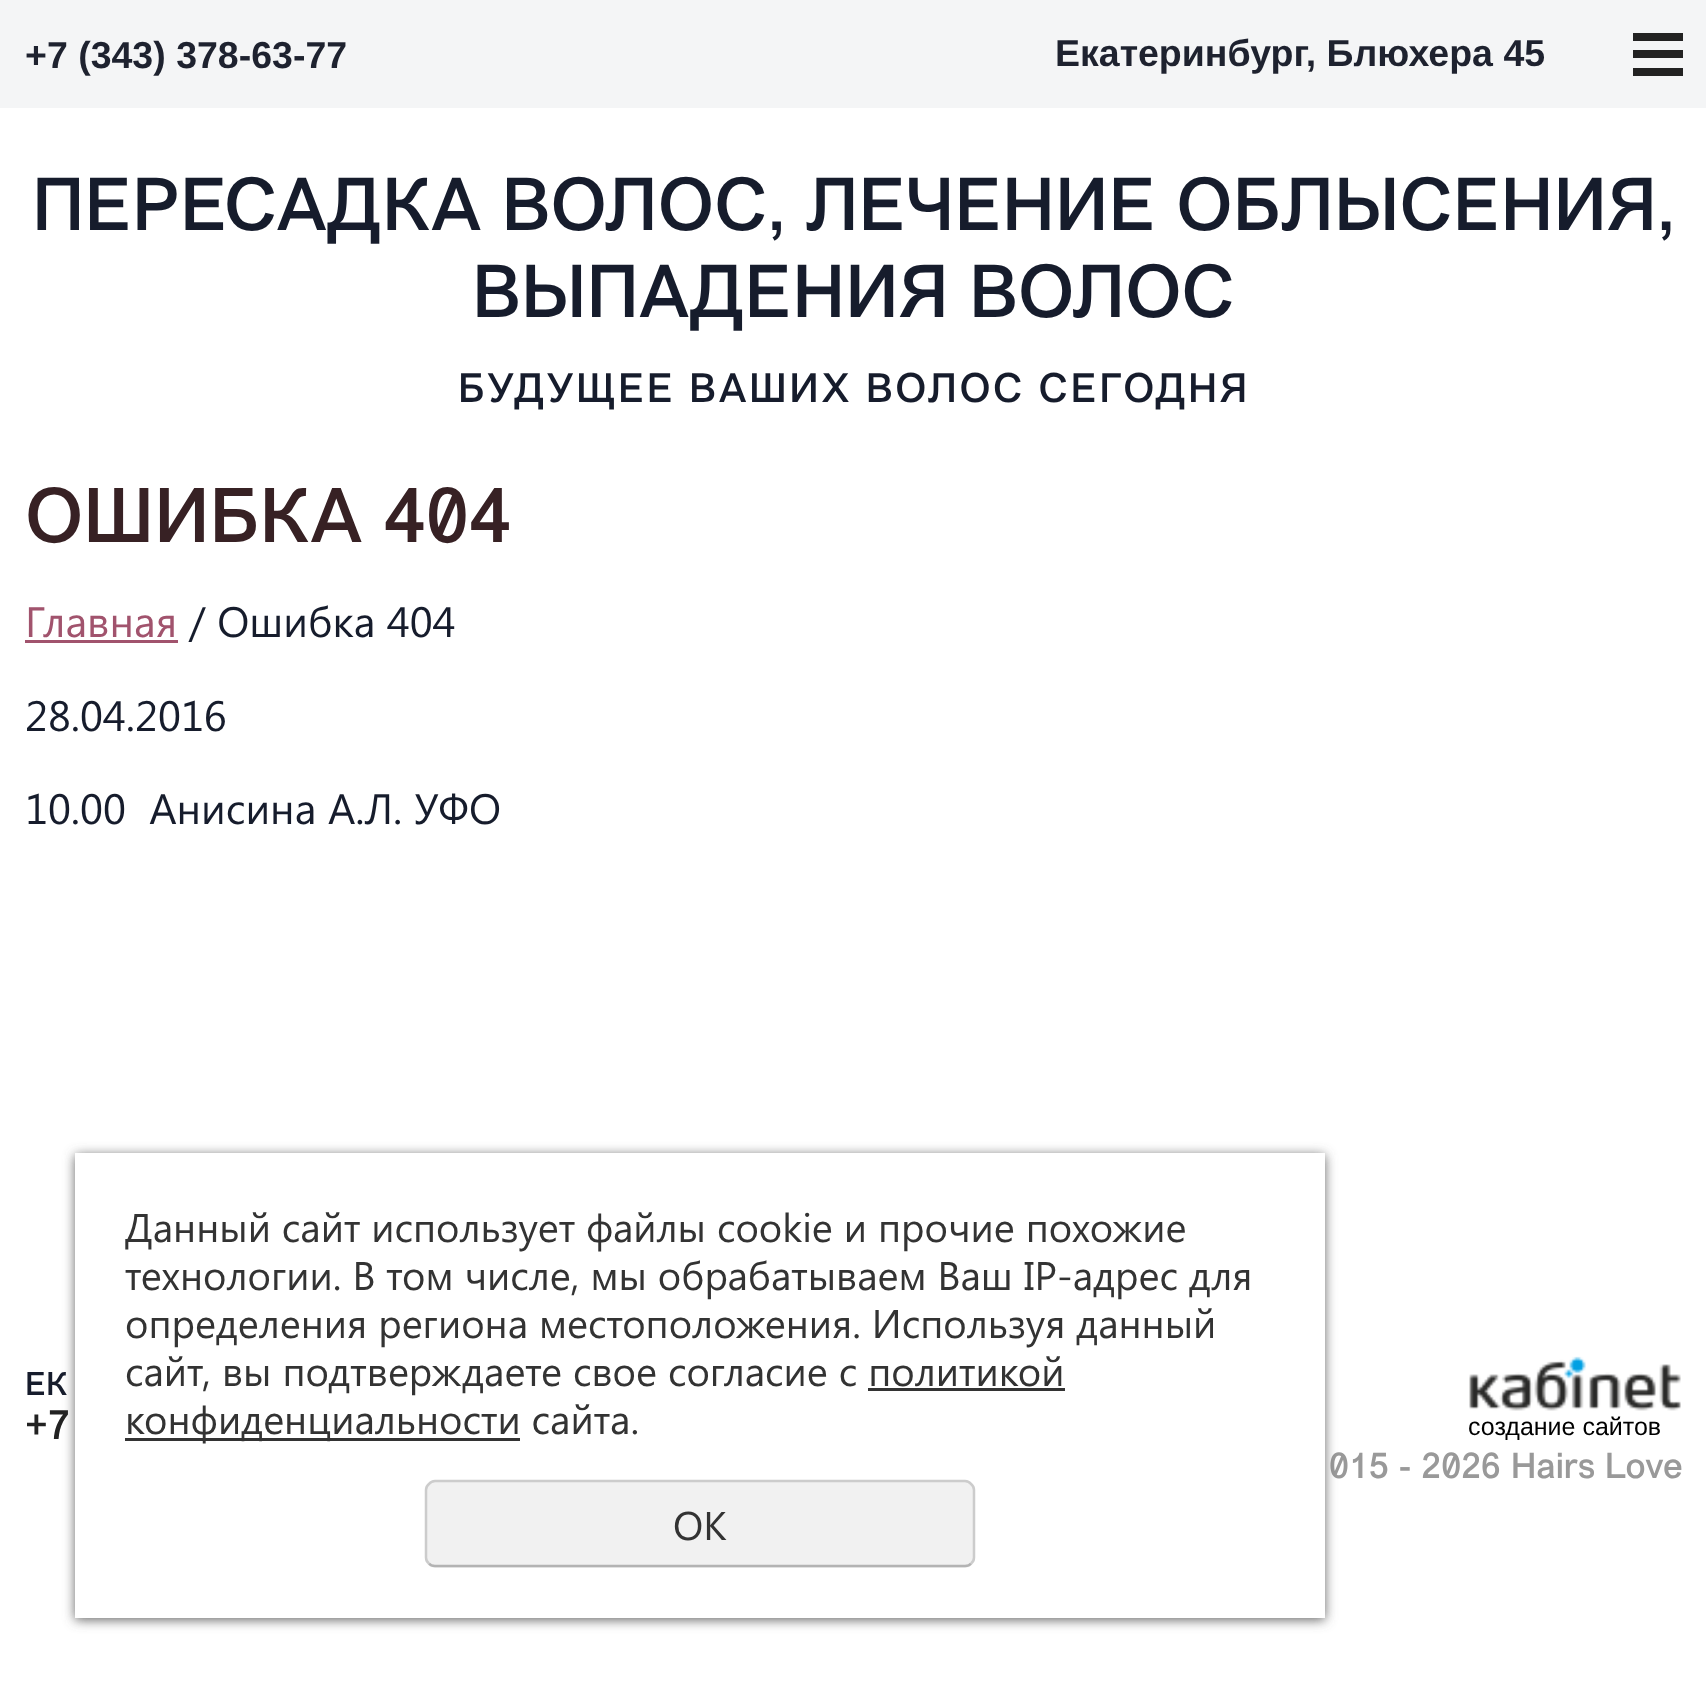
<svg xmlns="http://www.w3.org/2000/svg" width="1706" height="1692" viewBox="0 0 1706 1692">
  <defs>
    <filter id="blur1" x="-50%" y="-200%" width="200%" height="500%"><feGaussianBlur stdDeviation="6"/></filter>
  </defs>
  <rect width="100%" height="100%" fill="#ffffff"/>
  <rect x="0" y="0" width="1706" height="108" fill="#f4f5f6"/>
  <text x="25" y="68" font-family="Liberation Sans" font-size="37.5" font-weight="bold" fill="#1e222f">+7 (343) 378-63-77</text>
  <text x="1055" y="66" font-family="Liberation Sans" font-size="37.5" font-weight="bold" fill="#1e222f">Екатеринбург, Блюхера 45</text>
  <rect x="1633" y="33" width="50" height="8" fill="#222222"/>
  <rect x="1633" y="50" width="50" height="8" fill="#222222"/>
  <rect x="1633" y="68" width="50" height="8" fill="#222222"/>
  <text x="32" y="230" font-family="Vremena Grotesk" font-size="72.5" fill="#161c2c">ПЕРЕСАДКА ВОЛОС, ЛЕЧЕНИЕ ОБЛЫСЕНИЯ,</text>
  <text x="472" y="317" font-family="Vremena Grotesk" font-size="72.5" fill="#161c2c">ВЫПАДЕНИЯ ВОЛОС</text>
  <text x="458" y="402" font-family="Vremena Grotesk" font-size="40" letter-spacing="2.5" fill="#161c2c">БУДУЩЕЕ ВАШИХ ВОЛОС СЕГОДНЯ</text>
  <text x="25" y="542" font-family="Vremena Grotesk" font-size="75" fill="#372124">ОШИБКА 404</text>
  <text x="25" y="637" font-family="Segoe UI" font-size="42.5" fill="#a1536d">Главная</text>
  <rect x="25" y="640" width="153" height="3" fill="#a1536d"/>
  <text x="189" y="637" font-family="Segoe UI" font-size="42.5" fill="#161c2c">/ Ошибка 404</text>
  <text x="25" y="731" font-family="Segoe UI" font-size="42.5" fill="#161c2c">28.04.2016</text>
  <text x="25" y="824" font-family="Segoe UI" font-size="42.5" fill="#161c2c" xml:space="preserve">10.00  Анисина А.Л. УФО</text>
  <text x="25" y="1395" font-family="Vremena Grotesk" font-size="32" fill="#161c2c">ЕК</text>
  <text x="25" y="1439" font-family="Vremena Grotesk" font-size="40" fill="#222222">+7</text>
  <image x="1469" y="1356" width="212" height="55" href="img1.png"/>
  <text x="1468" y="1435" font-family="Liberation Sans" font-size="25" fill="#000000">создание сайтов</text>
  <text x="1329" y="1478" font-family="Vremena Grotesk" font-size="35" fill="#999999">015 - 2026 Hairs Love</text>
  <rect x="75" y="1155" width="1250" height="465" fill="#666666" filter="url(#blur1)"/>
  <rect x="75" y="1153" width="1250" height="465" fill="#ffffff"/>
  <text x="125" y="1242" font-family="Segoe UI" font-size="40" fill="#333333">Данный сайт использует файлы cookie и прочие похожие</text>
  <text x="125" y="1290" font-family="Segoe UI" font-size="40" fill="#333333">технологии. В том числе, мы обрабатываем Ваш IP-адрес для</text>
  <text x="125" y="1338" font-family="Segoe UI" font-size="40" fill="#333333">определения региона местоположения. Используя данный</text>
  <text x="125" y="1386" font-family="Segoe UI" font-size="40" fill="#333333">сайт, вы подтверждаете свое согласие с политикой</text>
  <rect x="125" y="1438" width="395" height="3" fill="#333333"/>
  <text x="125" y="1434" font-family="Segoe UI" font-size="40" fill="#333333">конфиденциальности сайта.</text>
  <rect x="868" y="1388" width="197" height="3" fill="#333333"/>
  <rect x="425" y="1480" width="550" height="88" rx="10" fill="#f1f1f1"/>
  <path d="M971 1563.5C969.5 1565.5 967.5 1566 965 1566H435C432.5 1566 430.5 1565.5 429 1563.5" fill="none" stroke="#b3b3b3" stroke-width="2.5"/>
  <path d="M429 1563.5C427 1562 426 1560 426 1557.5V1490C426 1487.5 427 1485.5 429 1484C430.5 1482 432.5 1481 435 1481H965C967.5 1481 969.5 1482 971 1484C973 1485.5 974 1487.5 974 1490V1557.5C974 1560 973 1562 971 1563.5" fill="none" stroke="#cccccc" stroke-width="2.5"/>
  <text x="673" y="1540" font-family="Segoe UI" font-size="40" fill="#333333">OK</text>
</svg>
